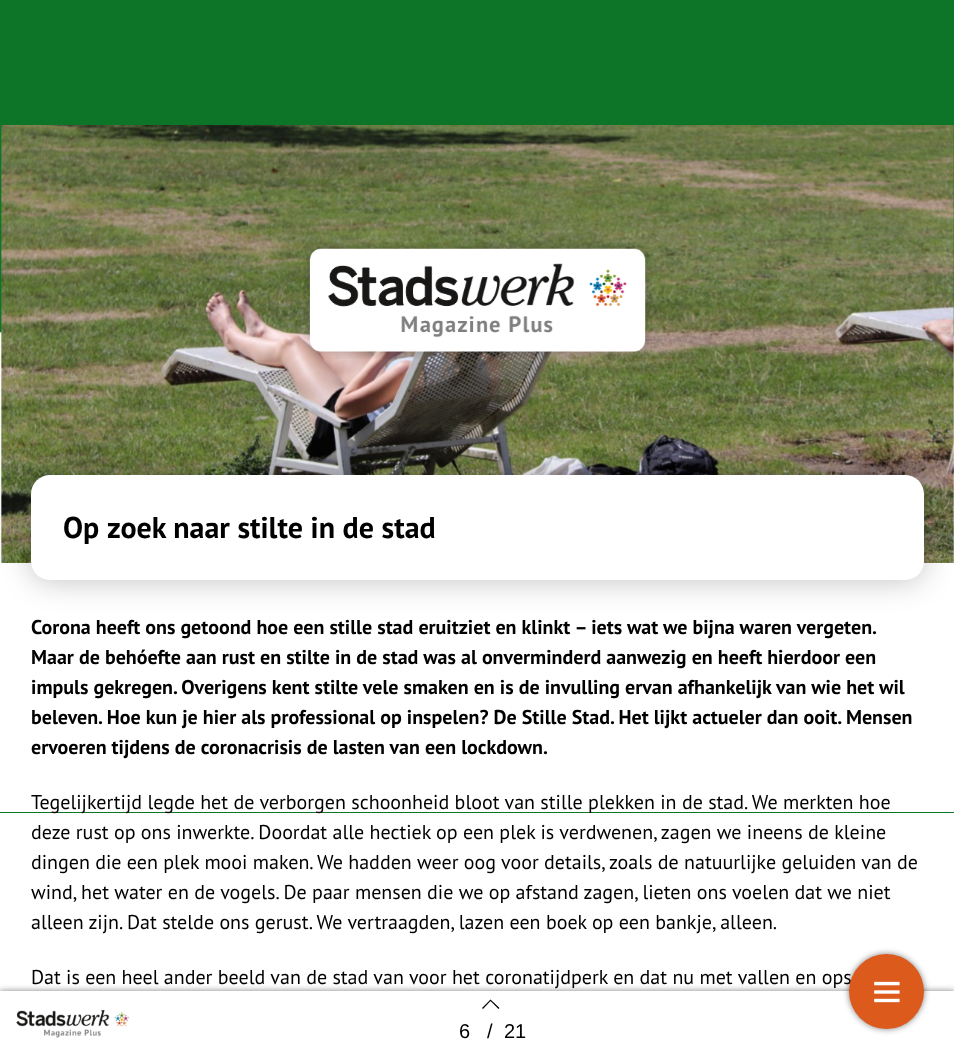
<svg xmlns="http://www.w3.org/2000/svg" width="954" height="1053" viewBox="0 0 954 1053">
  <defs>
    <filter id="blur1" x="-50%" y="-200%" width="200%" height="500%"><feGaussianBlur stdDeviation="15.5"/></filter>
    <filter id="blur2" x="-50%" y="-200%" width="200%" height="500%"><feGaussianBlur stdDeviation="3"/></filter>
  </defs>
  <rect width="100%" height="100%" fill="#ffffff"/>
  <rect x="0" y="0" width="954" height="813" fill="#0c7527"/>
  <path d="M-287 786V812H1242V786C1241 668 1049 192 478 188C-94 182-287 671-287 786Z" fill="#ffffff"/>
  <image x="0" y="125" width="954" height="438" href="img1.png"/>
  <image x="303" y="242" width="349" height="117" href="img2.png"/>
  <rect x="31" y="475" width="893" height="105" rx="19" fill="#000000" fill-opacity="0.25" filter="url(#blur1)"/>
  <rect x="31" y="475" width="893" height="105" rx="19" fill="#ffffff"/>
  <text x="63" y="538" font-family="PT Sans" font-size="30" font-weight="bold" fill="#000000">Op zoek naar stilte in de stad</text>
  <text x="31" y="634" font-family="PT Sans" font-size="20" font-weight="bold" fill="#000000">Corona heeft ons getoond hoe een stille stad eruitziet en klinkt – iets wat we bijna waren vergeten.</text>
  <text x="31" y="664" font-family="PT Sans" font-size="20" font-weight="bold" fill="#000000">Maar de behóefte aan rust en stilte in de stad was al onverminderd aanwezig en heeft hierdoor een</text>
  <text x="31" y="694" font-family="PT Sans" font-size="20" font-weight="bold" fill="#000000">impuls gekregen. Overigens kent stilte vele smaken en is de invulling ervan afhankelijk van wie het wil</text>
  <text x="31" y="724" font-family="PT Sans" font-size="20" font-weight="bold" fill="#000000">beleven. Hoe kun je hier als professional op inspelen? De Stille Stad. Het lijkt actueler dan ooit. Mensen</text>
  <text x="31" y="754" font-family="PT Sans" font-size="20" font-weight="bold" fill="#000000">ervoeren tijdens de coronacrisis de lasten van een lockdown.</text>
  <text x="31" y="809" font-family="PT Sans" font-size="20" fill="#000000">Tegelijkertijd legde het de verborgen schoonheid bloot van stille plekken in de stad. We merkten hoe</text>
  <text x="31" y="839" font-family="PT Sans" font-size="20" fill="#000000">deze rust op ons inwerkte. Doordat alle hectiek op een plek is verdwenen, zagen we ineens de kleine</text>
  <text x="31" y="869" font-family="PT Sans" font-size="20" fill="#000000">dingen die een plek mooi maken. We hadden weer oog voor details, zoals de natuurlijke geluiden van de</text>
  <text x="31" y="899" font-family="PT Sans" font-size="20" fill="#000000">wind, het water en de vogels. De paar mensen die we op afstand zagen, lieten ons voelen dat we niet</text>
  <text x="31" y="929" font-family="PT Sans" font-size="20" fill="#000000">alleen zijn. Dat stelde ons gerust. We vertraagden, lazen een boek op een bankje, alleen.</text>
  <text x="31" y="984" font-family="PT Sans" font-size="20" fill="#000000">Dat is een heel ander beeld van de stad van voor het coronatijdperk en dat nu met vallen en ops</text>
  <rect x="0" y="991" width="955" height="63" fill="#000000" fill-opacity="0.5" filter="url(#blur2)"/>
  <rect x="0" y="991" width="954" height="62" fill="#ffffff"/>
  <image x="16" y="1010" width="113" height="28" href="img3.png"/>
  <path d="M499.5 1008L498.5 1009L490.5 1001L483 1009L482 1008L490.5 999.5Z" fill="#000000"/>
  <text x="459" y="1038" font-family="Liberation Sans" font-size="20" fill="#000000">6</text>
  <text x="487" y="1038" font-family="Liberation Sans" font-size="20" fill="#000000">/</text>
  <text x="504" y="1038" font-family="Liberation Sans" font-size="20" fill="#000000">21</text>
  <rect x="849" y="954" width="75" height="75" rx="37.5" fill="#000000" fill-opacity="0.5" filter="url(#blur2)"/>
  <circle cx="886.5" cy="991.5" r="37.5" fill="#dc5a1c"/>
  <image x="874" y="981" width="26" height="22" href="img4.png"/>
</svg>
